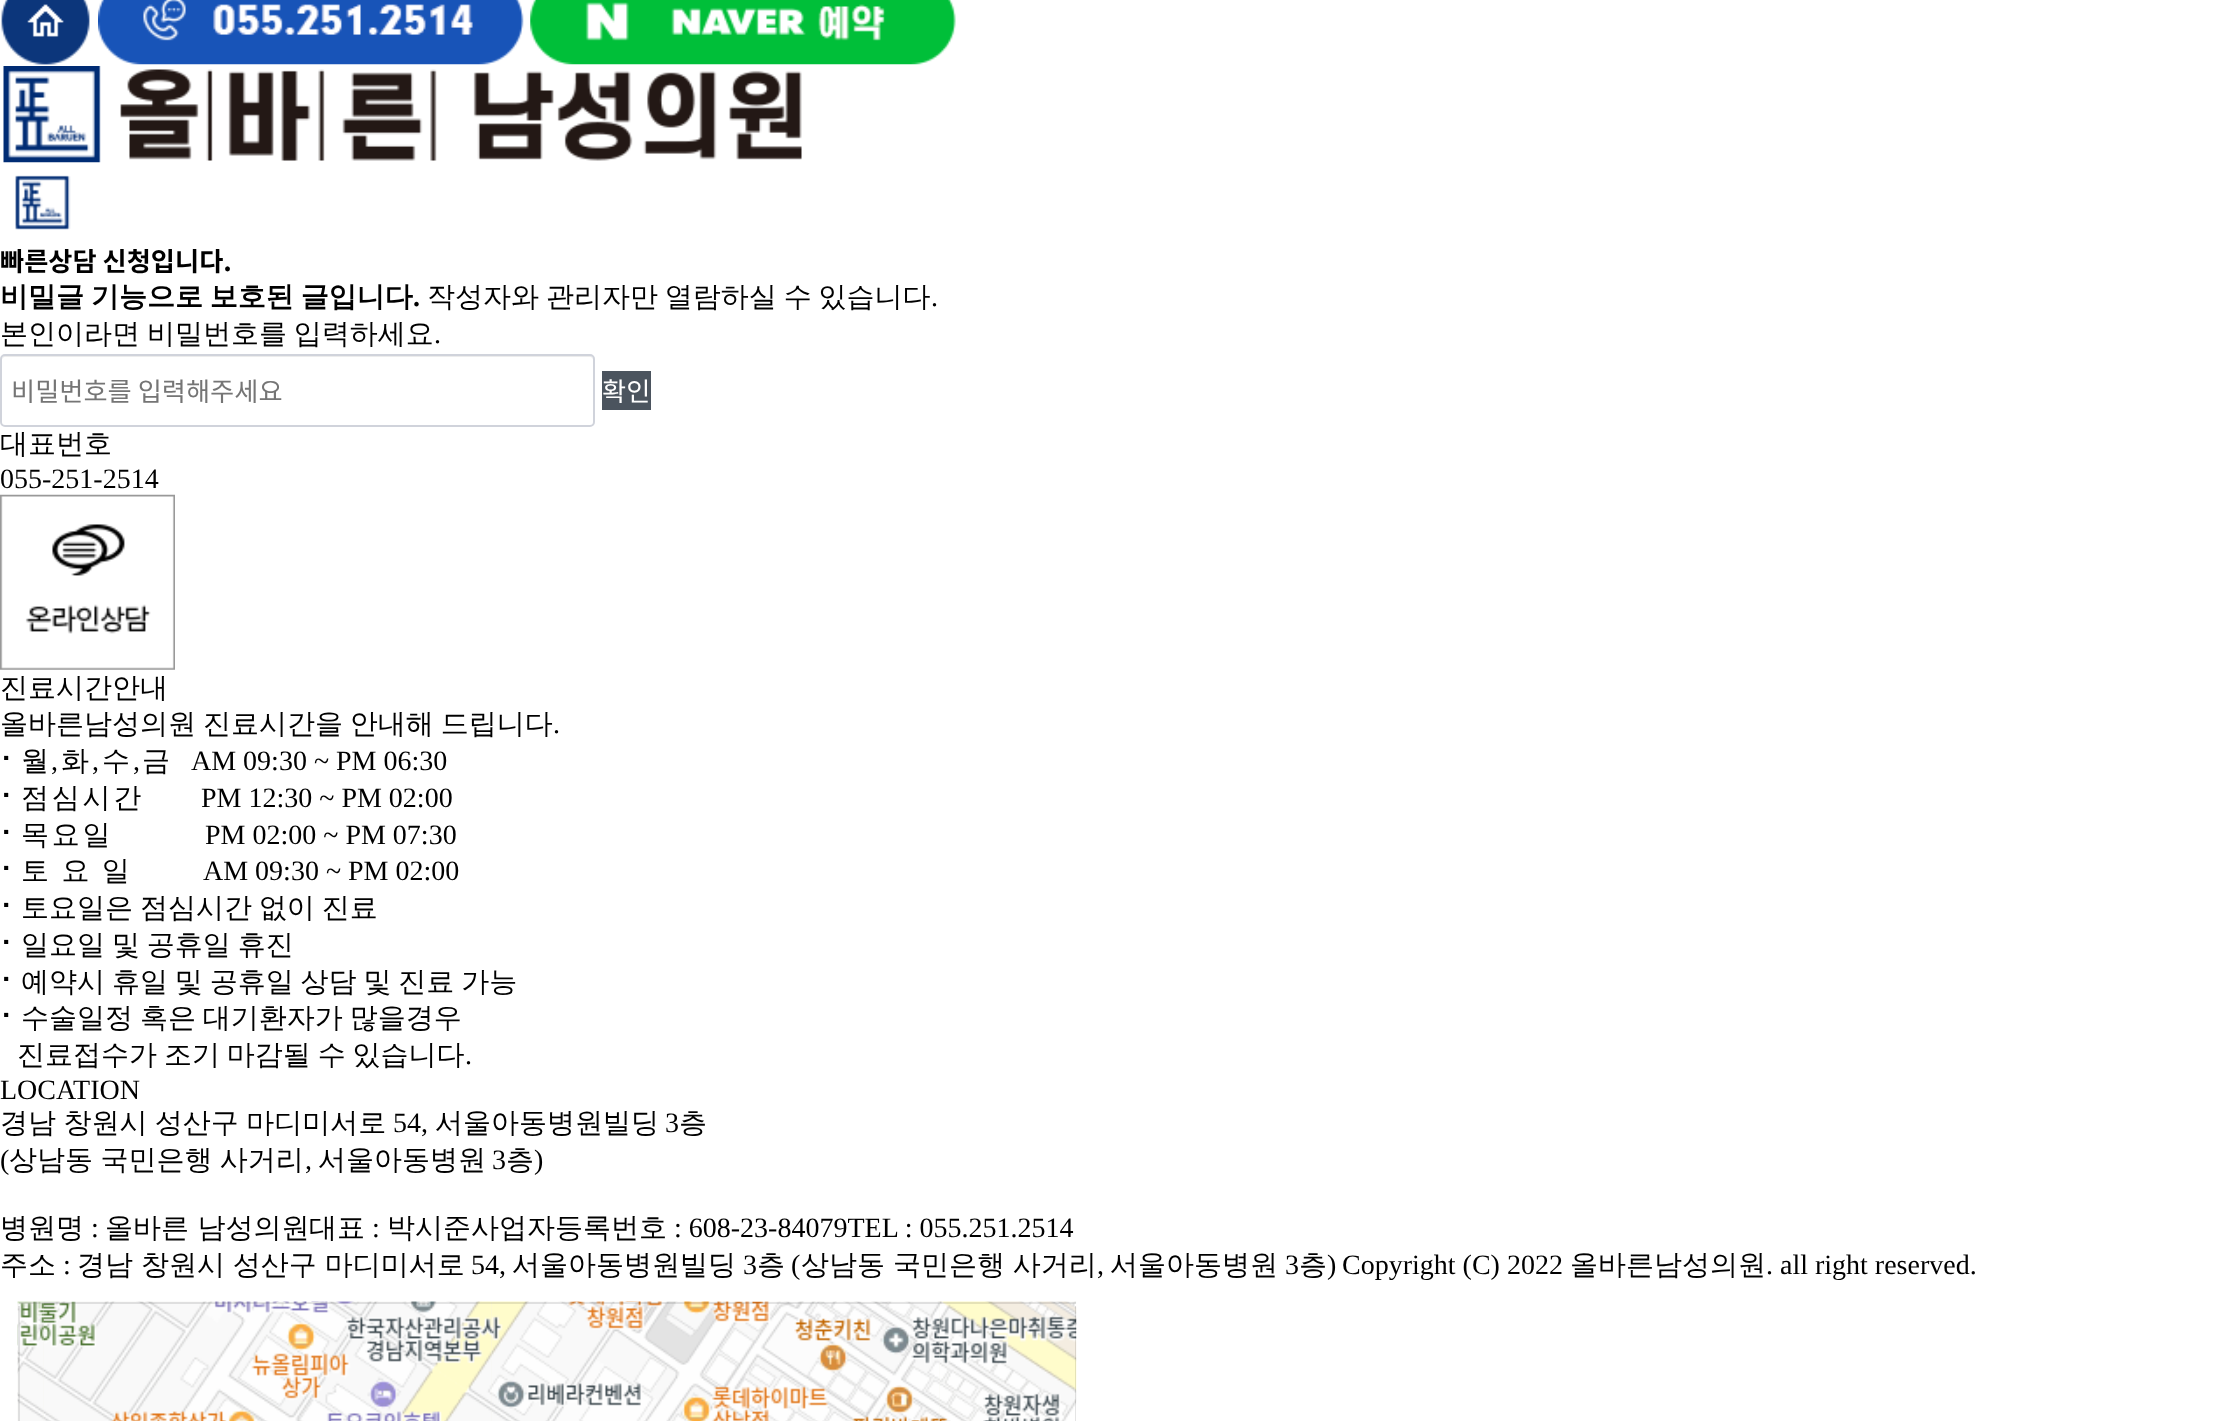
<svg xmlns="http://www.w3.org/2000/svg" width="2218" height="1421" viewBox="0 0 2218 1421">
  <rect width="100%" height="100%" fill="#ffffff"/>
  <image x="1" y="0" width="89" height="65" href="img1.png"/>
  <image x="98" y="0" width="426" height="65" href="img2.png"/>
  <image x="530" y="0" width="426" height="65" href="img3.png"/>
  <image x="3" y="66" width="799" height="97" href="img4.png"/>
  <image x="15" y="175" width="56" height="55" href="img5.png"/>
  <text x="0" y="271" font-family="Noto Sans KR" font-size="26.25" font-weight="bold" fill="#000000">빠른상담 신청입니다.</text>
  <text x="0" y="306" word-spacing="-1.5" font-family="WenQuanYi Zen Hei" font-size="28" font-weight="bold" fill="#000000">비밀글 기능으로 보호된 글입니다</text>
  <text x="413" y="306" font-family="Liberation Serif" font-size="28" font-weight="bold" fill="#000000">.</text>
  <text x="427" y="306" word-spacing="-1.5" font-family="WenQuanYi Zen Hei" font-size="28" font-weight="500" fill="#000000">작성자와 관리자만 열람하실 수 있습니다</text>
  <text x="931" y="306" font-family="Liberation Serif" font-size="28" fill="#000000">.</text>
  <text x="0" y="343" word-spacing="-1.5" font-family="WenQuanYi Zen Hei" font-size="28" font-weight="500" fill="#000000">본인이라면 비밀번호를 입력하세요</text>
  <text x="434" y="343" font-family="Liberation Serif" font-size="28" fill="#000000">.</text>
  <path d="M5 357H590C592 357 593 359 593 360V359C593 357 591 355 589 355H6C4 355 2 357 2 359V360C2 359 3 357 5 357Z" fill="#ececec"/>
  <rect x="1" y="355" width="593" height="71" rx="4" fill="none" stroke="#d0d3db" stroke-width="2"/>
  <text x="11" y="401" font-family="Noto Sans KR" font-size="26.25" fill="#757575">비밀번호를 입력해주세요</text>
  <rect x="602" y="371" width="49" height="39" fill="#4b545e"/>
  <text x="602" y="401" font-family="Noto Sans KR" font-size="26.25" fill="#ffffff">확인</text>
  <text x="0" y="453" font-family="WenQuanYi Zen Hei" font-size="28" font-weight="500" fill="#000000">대표번호</text>
  <text x="0" y="488" font-family="Liberation Serif" font-size="28" fill="#000000">055-251-2514</text>
  <image x="0" y="494" width="175" height="176" href="img6.png"/>
  <text x="0" y="697" font-family="WenQuanYi Zen Hei" font-size="28" font-weight="500" fill="#000000">진료시간안내</text>
  <text x="0" y="733" word-spacing="-1.5" font-family="WenQuanYi Zen Hei" font-size="28" font-weight="500" fill="#000000">올바른남성의원 진료시간을 안내해 드립니다</text>
  <text x="553" y="733" font-family="Liberation Serif" font-size="28" fill="#000000">.</text>
  <text x="0" y="770" font-family="DejaVu Sans" font-size="28" fill="#000000">⠂</text>
  <text x="21" y="770" font-family="WenQuanYi Zen Hei" font-size="28" font-weight="500" letter-spacing="2.75" fill="#000000">월</text>
  <text x="61" y="770" font-family="WenQuanYi Zen Hei" font-size="28" font-weight="500" letter-spacing="2.75" fill="#000000">화</text>
  <text x="102" y="770" font-family="WenQuanYi Zen Hei" font-size="28" font-weight="500" letter-spacing="2.75" fill="#000000">수</text>
  <text x="142" y="770" font-family="WenQuanYi Zen Hei" font-size="28" font-weight="500" letter-spacing="2.75" fill="#000000">금</text>
  <text x="191" y="770" font-family="Liberation Serif" font-size="28" fill="#000000">AM 09:30 ~ PM 06:30</text>
  <text x="51" y="770" font-family="Liberation Serif" font-size="28" letter-spacing="2.75" fill="#000000">,</text>
  <text x="92" y="770" font-family="Liberation Serif" font-size="28" letter-spacing="2.75" fill="#000000">,</text>
  <text x="133" y="770" font-family="Liberation Serif" font-size="28" letter-spacing="2.75" fill="#000000">,</text>
  <text x="0" y="807" font-family="DejaVu Sans" font-size="28" fill="#000000">⠂</text>
  <text x="21" y="807" font-family="WenQuanYi Zen Hei" font-size="28" font-weight="500" letter-spacing="2.75" fill="#000000">점심시간</text>
  <text x="201" y="807" font-family="Liberation Serif" font-size="28" fill="#000000">PM 12:30 ~ PM 02:00</text>
  <text x="0" y="844" font-family="DejaVu Sans" font-size="28" fill="#000000">⠂</text>
  <text x="21" y="844" font-family="WenQuanYi Zen Hei" font-size="28" font-weight="500" letter-spacing="2.75" fill="#000000">목요일</text>
  <text x="205" y="844" font-family="Liberation Serif" font-size="28" fill="#000000">PM 02:00 ~ PM 07:30</text>
  <text x="0" y="880" font-family="DejaVu Sans" font-size="28" fill="#000000">⠂</text>
  <text x="21" y="880" word-spacing="-1.5" font-family="WenQuanYi Zen Hei" font-size="28" font-weight="500" letter-spacing="2.75" fill="#000000">토 요 일</text>
  <text x="203" y="880" font-family="Liberation Serif" font-size="28" fill="#000000">AM 09:30 ~ PM 02:00</text>
  <text x="0" y="917" font-family="DejaVu Sans" font-size="28" fill="#000000">⠂</text>
  <text x="21" y="917" word-spacing="-1.5" font-family="WenQuanYi Zen Hei" font-size="28" font-weight="500" fill="#000000">토요일은 점심시간 없이 진료</text>
  <text x="0" y="954" font-family="DejaVu Sans" font-size="28" fill="#000000">⠂</text>
  <text x="21" y="954" word-spacing="-1.5" font-family="WenQuanYi Zen Hei" font-size="28" font-weight="500" fill="#000000">일요일 및 공휴일 휴진</text>
  <text x="0" y="991" font-family="DejaVu Sans" font-size="28" fill="#000000">⠂</text>
  <text x="21" y="991" word-spacing="-1.5" font-family="WenQuanYi Zen Hei" font-size="28" font-weight="500" fill="#000000">예약시 휴일 및 공휴일 상담 및 진료 가능</text>
  <text x="0" y="1027" font-family="DejaVu Sans" font-size="28" fill="#000000">⠂</text>
  <text x="21" y="1027" word-spacing="-1.5" font-family="WenQuanYi Zen Hei" font-size="28" font-weight="500" fill="#000000">수술일정 혹은 대기환자가 많을경우</text>
  <text x="17" y="1064" word-spacing="-1.5" font-family="WenQuanYi Zen Hei" font-size="28" font-weight="500" fill="#000000">진료접수가 조기 마감될 수 있습니다</text>
  <text x="465" y="1064" font-family="Liberation Serif" font-size="28" fill="#000000">.</text>
  <text x="0" y="1099" font-family="Liberation Serif" font-size="28" fill="#000000">LOCATION</text>
  <text x="0" y="1132" word-spacing="-1" font-family="WenQuanYi Zen Hei" font-size="28" font-weight="500" fill="#000000">경남 창원시 성산구 마디미서로</text>
  <text x="393" y="1132" font-family="Liberation Serif" font-size="28" fill="#000000">54,</text>
  <text x="435" y="1132" font-family="WenQuanYi Zen Hei" font-size="28" font-weight="500" fill="#000000">서울아동병원빌딩</text>
  <text x="665" y="1132" font-family="Liberation Serif" font-size="28" fill="#000000">3</text>
  <text x="679" y="1132" font-family="WenQuanYi Zen Hei" font-size="28" font-weight="500" fill="#000000">층</text>
  <text x="0" y="1169" font-family="Liberation Serif" font-size="28" fill="#000000">(</text>
  <text x="9" y="1169" word-spacing="-1" font-family="WenQuanYi Zen Hei" font-size="28" font-weight="500" fill="#000000">상남동 국민은행 사거리</text>
  <text x="305" y="1169" font-family="Liberation Serif" font-size="28" fill="#000000">,</text>
  <text x="318" y="1169" font-family="WenQuanYi Zen Hei" font-size="28" font-weight="500" fill="#000000">서울아동병원</text>
  <text x="492" y="1169" font-family="Liberation Serif" font-size="28" fill="#000000">3</text>
  <text x="506" y="1169" font-family="WenQuanYi Zen Hei" font-size="28" font-weight="500" fill="#000000">층</text>
  <text x="534" y="1169" font-family="Liberation Serif" font-size="28" fill="#000000">)</text>
  <text x="0" y="1237" font-family="WenQuanYi Zen Hei" font-size="28" font-weight="500" fill="#000000">병원명</text>
  <text x="91" y="1237" font-family="Liberation Serif" font-size="28" fill="#000000">:</text>
  <text x="105" y="1237" font-family="WenQuanYi Zen Hei" font-size="28" font-weight="500" fill="#000000">올바른 남성의원</text>
  <text x="309" y="1237" font-family="WenQuanYi Zen Hei" font-size="28" font-weight="500" fill="#000000">대표</text>
  <text x="372" y="1237" font-family="Liberation Serif" font-size="28" fill="#000000">:</text>
  <text x="387" y="1237" font-family="WenQuanYi Zen Hei" font-size="28" font-weight="500" fill="#000000">박시준사업자등록번호</text>
  <text x="674" y="1237" font-family="Liberation Serif" font-size="28" fill="#000000">: 608-23-84079TEL : 055.251.2514</text>
  <text x="0" y="1274" font-family="WenQuanYi Zen Hei" font-size="28" font-weight="500" fill="#000000">주소</text>
  <text x="63" y="1274" font-family="Liberation Serif" font-size="28" fill="#000000">:</text>
  <text x="77" y="1274" word-spacing="-0.5" font-family="WenQuanYi Zen Hei" font-size="28" font-weight="500" fill="#000000">경남 창원시 성산구 마디미서로</text>
  <text x="471" y="1274" font-family="Liberation Serif" font-size="28" fill="#000000">54,</text>
  <text x="512" y="1274" font-family="WenQuanYi Zen Hei" font-size="28" font-weight="500" fill="#000000">서울아동병원빌딩</text>
  <text x="743" y="1274" font-family="Liberation Serif" font-size="28" fill="#000000">3</text>
  <text x="757" y="1274" font-family="WenQuanYi Zen Hei" font-size="28" font-weight="500" fill="#000000">층</text>
  <text x="791" y="1274" font-family="Liberation Serif" font-size="28" fill="#000000">(</text>
  <text x="801" y="1274" word-spacing="-0.5" font-family="WenQuanYi Zen Hei" font-size="28" font-weight="500" fill="#000000">상남동 국민은행 사거리</text>
  <text x="1097" y="1274" font-family="Liberation Serif" font-size="28" fill="#000000">,</text>
  <text x="1110" y="1274" font-family="WenQuanYi Zen Hei" font-size="28" font-weight="500" fill="#000000">서울아동병원</text>
  <text x="1285" y="1274" font-family="Liberation Serif" font-size="28" fill="#000000">3</text>
  <text x="1299" y="1274" font-family="WenQuanYi Zen Hei" font-size="28" font-weight="500" fill="#000000">층</text>
  <text x="1327" y="1274" font-family="Liberation Serif" font-size="28" fill="#000000">)</text>
  <text x="1342" y="1274" font-family="Liberation Serif" font-size="28" fill="#000000">Copyright (C) 2022</text>
  <text x="1570" y="1274" font-family="WenQuanYi Zen Hei" font-size="28" font-weight="500" fill="#000000">올바른남성의원</text>
  <text x="1766" y="1274" font-family="Liberation Serif" font-size="28" fill="#000000">. all right reserved.</text>
  <image x="17" y="1301" width="1059" height="120" href="img7.png"/>
  <image x="17" y="1301" width="27" height="120" href="img8.png"/>
  <image x="43" y="1301" width="449" height="120" href="img9.png"/>
  <image x="491" y="1301" width="449" height="120" href="img10.png"/>
  <image x="939" y="1301" width="138" height="120" href="img11.png"/>
  <rect x="19" y="1302" width="1057" height="2" fill="#000000" fill-opacity="0.1"/>
  <rect x="18" y="1306" width="2" height="115" fill="#000000" fill-opacity="0.1"/>
  <rect x="1075" y="1306" width="1" height="115" fill="#000000" fill-opacity="0.1"/>
</svg>
